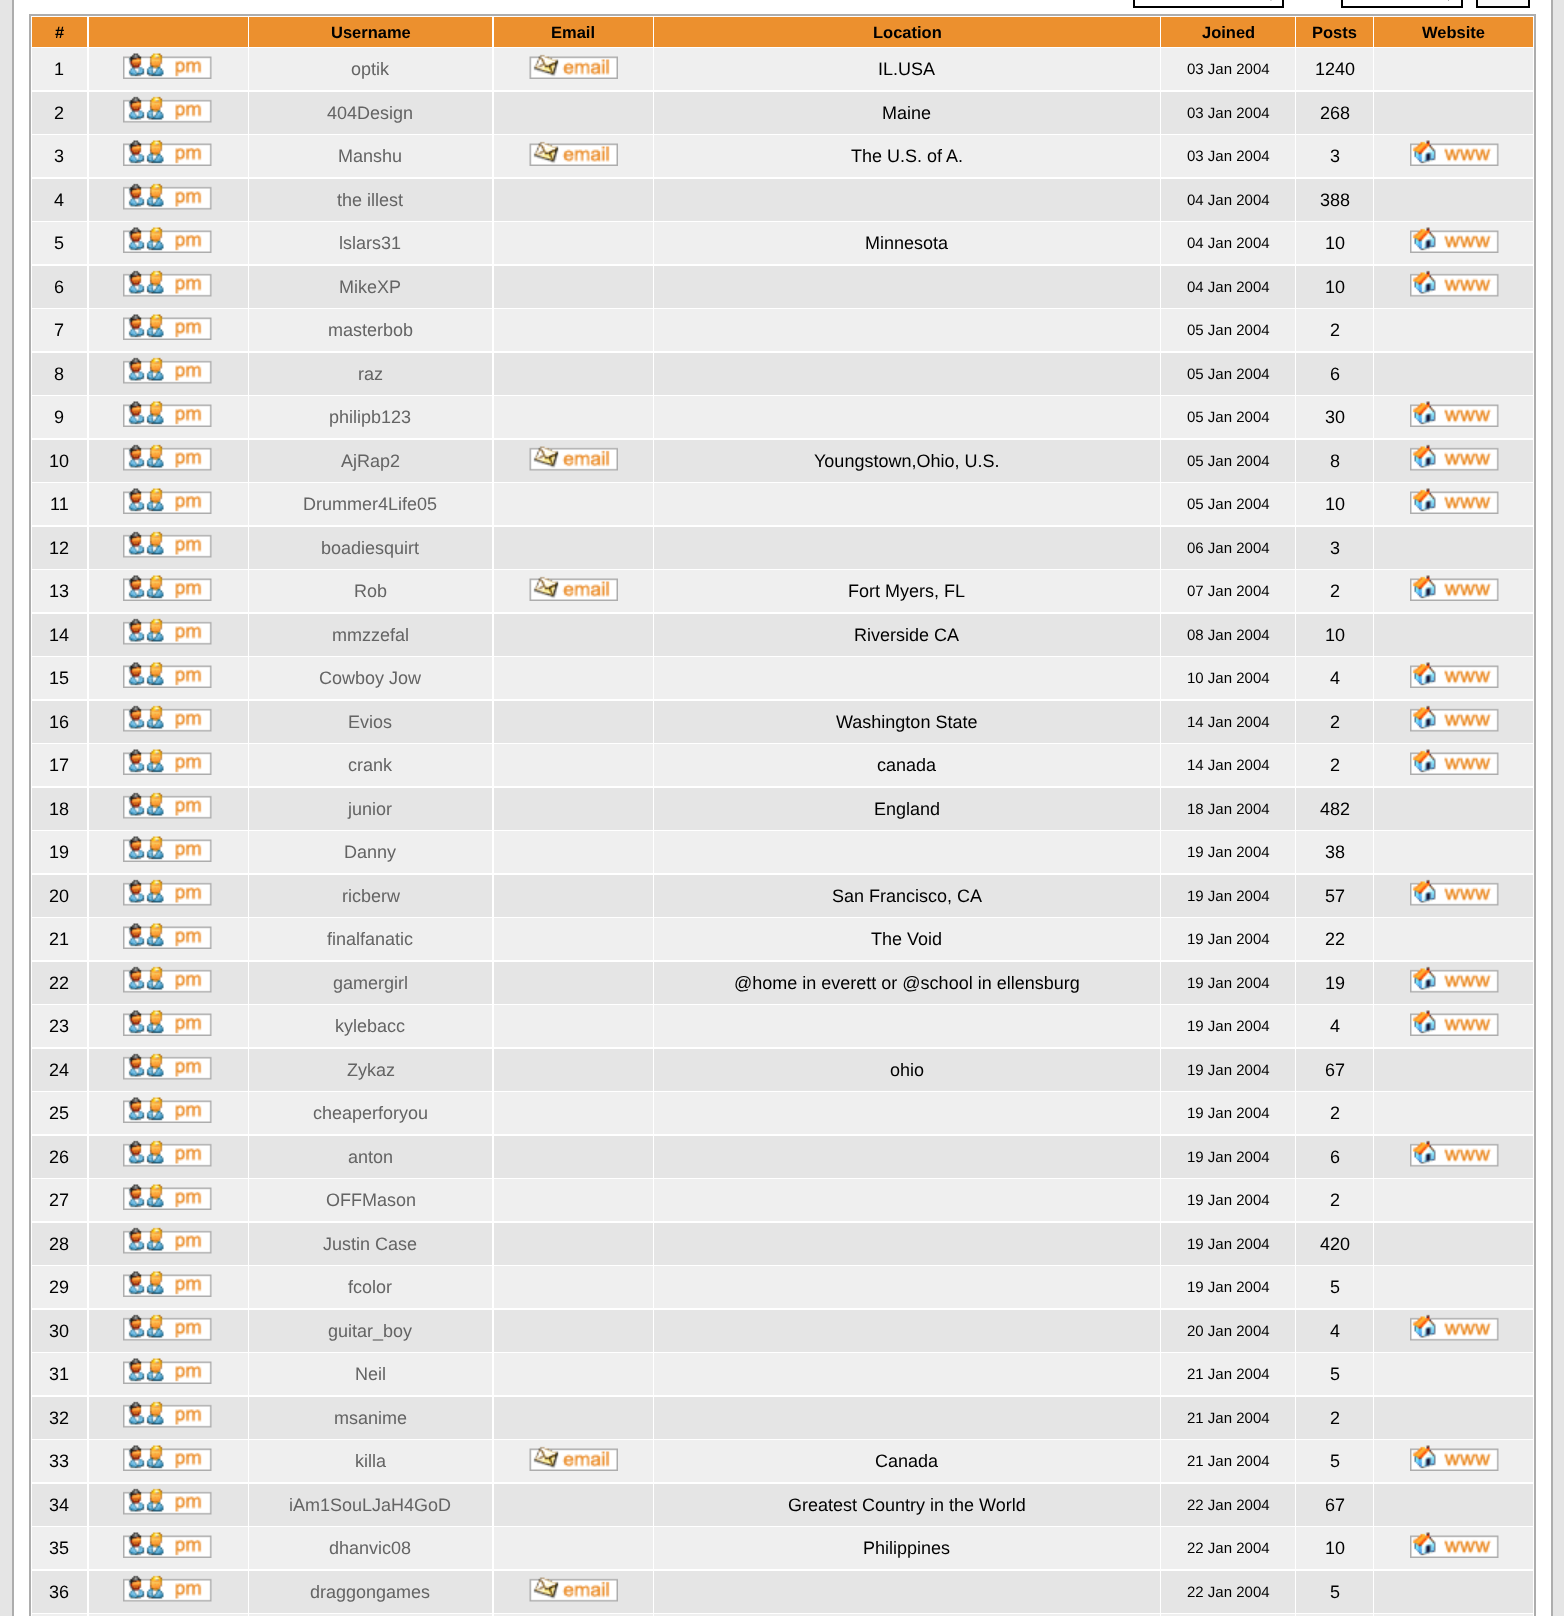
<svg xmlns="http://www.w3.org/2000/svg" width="1564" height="1616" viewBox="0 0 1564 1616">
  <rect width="100%" height="100%" fill="#e5e5e5"/>
  <rect x="13" y="-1" width="1539" height="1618" fill="#ffffff" stroke="#adadad" stroke-width="2"/>
  <rect x="1134" y="-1" width="149" height="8" fill="none" stroke="#000000" stroke-width="2"/>
  <path d="M1265-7.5L1271-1.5L1277-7.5" fill="none" stroke="#000000" stroke-width="3"/>
  <rect x="1342" y="-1" width="120" height="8" fill="none" stroke="#000000" stroke-width="2"/>
  <path d="M1442.5-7.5L1448.5-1.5L1454.5-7.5" fill="none" stroke="#000000" stroke-width="3"/>
  <rect x="1477" y="-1" width="52" height="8" fill="#fafafa" stroke="#000000" stroke-width="2"/>
  <rect x="30" y="15" width="1505" height="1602" fill="none" stroke="#adadad" stroke-width="2"/>
  <rect x="32" y="17" width="55" height="30" fill="#ec902e"/>
  <text x="55" y="38" font-family="Liberation Sans" font-size="16.5" font-weight="bold" fill="#000000">#</text>
  <rect x="89" y="17" width="159" height="30" fill="#ec902e"/>
  <rect x="249" y="17" width="243" height="30" fill="#ec902e"/>
  <text x="331" y="38" font-family="Liberation Sans" font-size="16.5" font-weight="bold" fill="#000000">Username</text>
  <rect x="494" y="17" width="159" height="30" fill="#ec902e"/>
  <text x="551" y="38" font-family="Liberation Sans" font-size="16.5" font-weight="bold" fill="#000000">Email</text>
  <rect x="654" y="17" width="506" height="30" fill="#ec902e"/>
  <text x="873" y="38" font-family="Liberation Sans" font-size="16.5" font-weight="bold" fill="#000000">Location</text>
  <rect x="1161" y="17" width="134" height="30" fill="#ec902e"/>
  <text x="1202" y="38" font-family="Liberation Sans" font-size="16.5" font-weight="bold" fill="#000000">Joined</text>
  <rect x="1296" y="17" width="77" height="30" fill="#ec902e"/>
  <text x="1312" y="38" font-family="Liberation Sans" font-size="16.5" font-weight="bold" fill="#000000">Posts</text>
  <rect x="1374" y="17" width="159" height="30" fill="#ec902e"/>
  <text x="1422" y="38" font-family="Liberation Sans" font-size="16.5" font-weight="bold" fill="#000000">Website</text>
  <rect x="32" y="48" width="55" height="42" fill="#efefef"/>
  <text x="54" y="75" font-family="Liberation Sans" font-size="18" fill="#000000">1</text>
  <rect x="89" y="48" width="159" height="42" fill="#efefef"/>
  <image x="123" y="53" width="89" height="26" href="img1.png"/>
  <rect x="249" y="48" width="243" height="42" fill="#efefef"/>
  <text x="351" y="75" font-family="Liberation Sans" font-size="18" fill="#646464">optik</text>
  <rect x="494" y="48" width="159" height="42" fill="#efefef"/>
  <image x="529" y="54" width="89" height="25" href="img2.png"/>
  <rect x="654" y="48" width="506" height="42" fill="#efefef"/>
  <text x="878" y="75" font-family="Liberation Sans" font-size="18" fill="#000000">IL.USA</text>
  <rect x="1161" y="48" width="134" height="42" fill="#efefef"/>
  <text x="1187" y="74" font-family="Liberation Sans" font-size="15" fill="#000000">03 Jan 2004</text>
  <rect x="1296" y="48" width="77" height="42" fill="#efefef"/>
  <text x="1315" y="75" font-family="Liberation Sans" font-size="18" fill="#000000">1240</text>
  <rect x="1374" y="48" width="159" height="42" fill="#efefef"/>
  <rect x="32" y="92" width="55" height="42" fill="#e5e5e5"/>
  <text x="54" y="119" font-family="Liberation Sans" font-size="18" fill="#000000">2</text>
  <rect x="89" y="92" width="159" height="42" fill="#e5e5e5"/>
  <image x="123" y="96" width="89" height="27" href="img3.png"/>
  <rect x="249" y="92" width="243" height="42" fill="#e5e5e5"/>
  <text x="327" y="119" font-family="Liberation Sans" font-size="18" fill="#646464">404Design</text>
  <rect x="494" y="92" width="159" height="42" fill="#e5e5e5"/>
  <rect x="654" y="92" width="506" height="42" fill="#e5e5e5"/>
  <text x="882" y="119" font-family="Liberation Sans" font-size="18" fill="#000000">Maine</text>
  <rect x="1161" y="92" width="134" height="42" fill="#e5e5e5"/>
  <text x="1187" y="118" font-family="Liberation Sans" font-size="15" fill="#000000">03 Jan 2004</text>
  <rect x="1296" y="92" width="77" height="42" fill="#e5e5e5"/>
  <text x="1320" y="119" font-family="Liberation Sans" font-size="18" fill="#000000">268</text>
  <rect x="1374" y="92" width="159" height="42" fill="#e5e5e5"/>
  <rect x="32" y="135" width="55" height="42" fill="#efefef"/>
  <text x="54" y="162" font-family="Liberation Sans" font-size="18" fill="#000000">3</text>
  <rect x="89" y="135" width="159" height="42" fill="#efefef"/>
  <image x="123" y="140" width="89" height="26" href="img1.png"/>
  <rect x="249" y="135" width="243" height="42" fill="#efefef"/>
  <text x="338" y="162" font-family="Liberation Sans" font-size="18" fill="#646464">Manshu</text>
  <rect x="494" y="135" width="159" height="42" fill="#efefef"/>
  <image x="529" y="141" width="89" height="25" href="img2.png"/>
  <rect x="654" y="135" width="506" height="42" fill="#efefef"/>
  <text x="851" y="162" font-family="Liberation Sans" font-size="18" fill="#000000">The U.S. of A.</text>
  <rect x="1161" y="135" width="134" height="42" fill="#efefef"/>
  <text x="1187" y="161" font-family="Liberation Sans" font-size="15" fill="#000000">03 Jan 2004</text>
  <rect x="1296" y="135" width="77" height="42" fill="#efefef"/>
  <text x="1330" y="162" font-family="Liberation Sans" font-size="18" fill="#000000">3</text>
  <rect x="1374" y="135" width="159" height="42" fill="#efefef"/>
  <image x="1410" y="140" width="89" height="26" href="img4.png"/>
  <rect x="32" y="179" width="55" height="42" fill="#e5e5e5"/>
  <text x="54" y="206" font-family="Liberation Sans" font-size="18" fill="#000000">4</text>
  <rect x="89" y="179" width="159" height="42" fill="#e5e5e5"/>
  <image x="123" y="183" width="89" height="27" href="img3.png"/>
  <rect x="249" y="179" width="243" height="42" fill="#e5e5e5"/>
  <text x="337" y="206" font-family="Liberation Sans" font-size="18" fill="#646464">the illest</text>
  <rect x="494" y="179" width="159" height="42" fill="#e5e5e5"/>
  <rect x="654" y="179" width="506" height="42" fill="#e5e5e5"/>
  <rect x="1161" y="179" width="134" height="42" fill="#e5e5e5"/>
  <text x="1187" y="205" font-family="Liberation Sans" font-size="15" fill="#000000">04 Jan 2004</text>
  <rect x="1296" y="179" width="77" height="42" fill="#e5e5e5"/>
  <text x="1320" y="206" font-family="Liberation Sans" font-size="18" fill="#000000">388</text>
  <rect x="1374" y="179" width="159" height="42" fill="#e5e5e5"/>
  <rect x="32" y="222" width="55" height="42" fill="#efefef"/>
  <text x="54" y="249" font-family="Liberation Sans" font-size="18" fill="#000000">5</text>
  <rect x="89" y="222" width="159" height="42" fill="#efefef"/>
  <image x="123" y="227" width="89" height="26" href="img1.png"/>
  <rect x="249" y="222" width="243" height="42" fill="#efefef"/>
  <text x="339" y="249" font-family="Liberation Sans" font-size="18" fill="#646464">lslars31</text>
  <rect x="494" y="222" width="159" height="42" fill="#efefef"/>
  <rect x="654" y="222" width="506" height="42" fill="#efefef"/>
  <text x="865" y="249" font-family="Liberation Sans" font-size="18" fill="#000000">Minnesota</text>
  <rect x="1161" y="222" width="134" height="42" fill="#efefef"/>
  <text x="1187" y="248" font-family="Liberation Sans" font-size="15" fill="#000000">04 Jan 2004</text>
  <rect x="1296" y="222" width="77" height="42" fill="#efefef"/>
  <text x="1325" y="249" font-family="Liberation Sans" font-size="18" fill="#000000">10</text>
  <rect x="1374" y="222" width="159" height="42" fill="#efefef"/>
  <image x="1410" y="227" width="89" height="26" href="img4.png"/>
  <rect x="32" y="266" width="55" height="42" fill="#e5e5e5"/>
  <text x="54" y="293" font-family="Liberation Sans" font-size="18" fill="#000000">6</text>
  <rect x="89" y="266" width="159" height="42" fill="#e5e5e5"/>
  <image x="123" y="270" width="89" height="27" href="img3.png"/>
  <rect x="249" y="266" width="243" height="42" fill="#e5e5e5"/>
  <text x="339" y="293" font-family="Liberation Sans" font-size="18" fill="#646464">MikeXP</text>
  <rect x="494" y="266" width="159" height="42" fill="#e5e5e5"/>
  <rect x="654" y="266" width="506" height="42" fill="#e5e5e5"/>
  <rect x="1161" y="266" width="134" height="42" fill="#e5e5e5"/>
  <text x="1187" y="292" font-family="Liberation Sans" font-size="15" fill="#000000">04 Jan 2004</text>
  <rect x="1296" y="266" width="77" height="42" fill="#e5e5e5"/>
  <text x="1325" y="293" font-family="Liberation Sans" font-size="18" fill="#000000">10</text>
  <rect x="1374" y="266" width="159" height="42" fill="#e5e5e5"/>
  <image x="1410" y="270" width="89" height="27" href="img5.png"/>
  <rect x="32" y="309" width="55" height="42" fill="#efefef"/>
  <text x="54" y="336" font-family="Liberation Sans" font-size="18" fill="#000000">7</text>
  <rect x="89" y="309" width="159" height="42" fill="#efefef"/>
  <image x="123" y="314" width="89" height="26" href="img1.png"/>
  <rect x="249" y="309" width="243" height="42" fill="#efefef"/>
  <text x="328" y="336" font-family="Liberation Sans" font-size="18" fill="#646464">masterbob</text>
  <rect x="494" y="309" width="159" height="42" fill="#efefef"/>
  <rect x="654" y="309" width="506" height="42" fill="#efefef"/>
  <rect x="1161" y="309" width="134" height="42" fill="#efefef"/>
  <text x="1187" y="335" font-family="Liberation Sans" font-size="15" fill="#000000">05 Jan 2004</text>
  <rect x="1296" y="309" width="77" height="42" fill="#efefef"/>
  <text x="1330" y="336" font-family="Liberation Sans" font-size="18" fill="#000000">2</text>
  <rect x="1374" y="309" width="159" height="42" fill="#efefef"/>
  <rect x="32" y="353" width="55" height="42" fill="#e5e5e5"/>
  <text x="54" y="380" font-family="Liberation Sans" font-size="18" fill="#000000">8</text>
  <rect x="89" y="353" width="159" height="42" fill="#e5e5e5"/>
  <image x="123" y="357" width="89" height="27" href="img3.png"/>
  <rect x="249" y="353" width="243" height="42" fill="#e5e5e5"/>
  <text x="358" y="380" font-family="Liberation Sans" font-size="18" fill="#646464">raz</text>
  <rect x="494" y="353" width="159" height="42" fill="#e5e5e5"/>
  <rect x="654" y="353" width="506" height="42" fill="#e5e5e5"/>
  <rect x="1161" y="353" width="134" height="42" fill="#e5e5e5"/>
  <text x="1187" y="379" font-family="Liberation Sans" font-size="15" fill="#000000">05 Jan 2004</text>
  <rect x="1296" y="353" width="77" height="42" fill="#e5e5e5"/>
  <text x="1330" y="380" font-family="Liberation Sans" font-size="18" fill="#000000">6</text>
  <rect x="1374" y="353" width="159" height="42" fill="#e5e5e5"/>
  <rect x="32" y="396" width="55" height="42" fill="#efefef"/>
  <text x="54" y="423" font-family="Liberation Sans" font-size="18" fill="#000000">9</text>
  <rect x="89" y="396" width="159" height="42" fill="#efefef"/>
  <image x="123" y="401" width="89" height="26" href="img1.png"/>
  <rect x="249" y="396" width="243" height="42" fill="#efefef"/>
  <text x="329" y="423" font-family="Liberation Sans" font-size="18" fill="#646464">philipb123</text>
  <rect x="494" y="396" width="159" height="42" fill="#efefef"/>
  <rect x="654" y="396" width="506" height="42" fill="#efefef"/>
  <rect x="1161" y="396" width="134" height="42" fill="#efefef"/>
  <text x="1187" y="422" font-family="Liberation Sans" font-size="15" fill="#000000">05 Jan 2004</text>
  <rect x="1296" y="396" width="77" height="42" fill="#efefef"/>
  <text x="1325" y="423" font-family="Liberation Sans" font-size="18" fill="#000000">30</text>
  <rect x="1374" y="396" width="159" height="42" fill="#efefef"/>
  <image x="1410" y="401" width="89" height="26" href="img4.png"/>
  <rect x="32" y="440" width="55" height="42" fill="#e5e5e5"/>
  <text x="49" y="467" font-family="Liberation Sans" font-size="18" fill="#000000">10</text>
  <rect x="89" y="440" width="159" height="42" fill="#e5e5e5"/>
  <image x="123" y="444" width="89" height="27" href="img3.png"/>
  <rect x="249" y="440" width="243" height="42" fill="#e5e5e5"/>
  <text x="341" y="467" font-family="Liberation Sans" font-size="18" fill="#646464">AjRap2</text>
  <rect x="494" y="440" width="159" height="42" fill="#e5e5e5"/>
  <image x="529" y="446" width="89" height="25" href="img6.png"/>
  <rect x="654" y="440" width="506" height="42" fill="#e5e5e5"/>
  <text x="814" y="467" font-family="Liberation Sans" font-size="18" fill="#000000">Youngstown,Ohio, U.S.</text>
  <rect x="1161" y="440" width="134" height="42" fill="#e5e5e5"/>
  <text x="1187" y="466" font-family="Liberation Sans" font-size="15" fill="#000000">05 Jan 2004</text>
  <rect x="1296" y="440" width="77" height="42" fill="#e5e5e5"/>
  <text x="1330" y="467" font-family="Liberation Sans" font-size="18" fill="#000000">8</text>
  <rect x="1374" y="440" width="159" height="42" fill="#e5e5e5"/>
  <image x="1410" y="444" width="89" height="27" href="img5.png"/>
  <rect x="32" y="483" width="55" height="42" fill="#efefef"/>
  <text x="50" y="510" font-family="Liberation Sans" font-size="18" fill="#000000">11</text>
  <rect x="89" y="483" width="159" height="42" fill="#efefef"/>
  <image x="123" y="488" width="89" height="26" href="img1.png"/>
  <rect x="249" y="483" width="243" height="42" fill="#efefef"/>
  <text x="303" y="510" font-family="Liberation Sans" font-size="18" fill="#646464">Drummer4Life05</text>
  <rect x="494" y="483" width="159" height="42" fill="#efefef"/>
  <rect x="654" y="483" width="506" height="42" fill="#efefef"/>
  <rect x="1161" y="483" width="134" height="42" fill="#efefef"/>
  <text x="1187" y="509" font-family="Liberation Sans" font-size="15" fill="#000000">05 Jan 2004</text>
  <rect x="1296" y="483" width="77" height="42" fill="#efefef"/>
  <text x="1325" y="510" font-family="Liberation Sans" font-size="18" fill="#000000">10</text>
  <rect x="1374" y="483" width="159" height="42" fill="#efefef"/>
  <image x="1410" y="488" width="89" height="26" href="img4.png"/>
  <rect x="32" y="527" width="55" height="42" fill="#e5e5e5"/>
  <text x="49" y="554" font-family="Liberation Sans" font-size="18" fill="#000000">12</text>
  <rect x="89" y="527" width="159" height="42" fill="#e5e5e5"/>
  <image x="123" y="531" width="89" height="27" href="img3.png"/>
  <rect x="249" y="527" width="243" height="42" fill="#e5e5e5"/>
  <text x="321" y="554" font-family="Liberation Sans" font-size="18" fill="#646464">boadiesquirt</text>
  <rect x="494" y="527" width="159" height="42" fill="#e5e5e5"/>
  <rect x="654" y="527" width="506" height="42" fill="#e5e5e5"/>
  <rect x="1161" y="527" width="134" height="42" fill="#e5e5e5"/>
  <text x="1187" y="553" font-family="Liberation Sans" font-size="15" fill="#000000">06 Jan 2004</text>
  <rect x="1296" y="527" width="77" height="42" fill="#e5e5e5"/>
  <text x="1330" y="554" font-family="Liberation Sans" font-size="18" fill="#000000">3</text>
  <rect x="1374" y="527" width="159" height="42" fill="#e5e5e5"/>
  <rect x="32" y="570" width="55" height="42" fill="#efefef"/>
  <text x="49" y="597" font-family="Liberation Sans" font-size="18" fill="#000000">13</text>
  <rect x="89" y="570" width="159" height="42" fill="#efefef"/>
  <image x="123" y="575" width="89" height="26" href="img1.png"/>
  <rect x="249" y="570" width="243" height="42" fill="#efefef"/>
  <text x="354" y="597" font-family="Liberation Sans" font-size="18" fill="#646464">Rob</text>
  <rect x="494" y="570" width="159" height="42" fill="#efefef"/>
  <image x="529" y="576" width="89" height="25" href="img2.png"/>
  <rect x="654" y="570" width="506" height="42" fill="#efefef"/>
  <text x="848" y="597" font-family="Liberation Sans" font-size="18" fill="#000000">Fort Myers, FL</text>
  <rect x="1161" y="570" width="134" height="42" fill="#efefef"/>
  <text x="1187" y="596" font-family="Liberation Sans" font-size="15" fill="#000000">07 Jan 2004</text>
  <rect x="1296" y="570" width="77" height="42" fill="#efefef"/>
  <text x="1330" y="597" font-family="Liberation Sans" font-size="18" fill="#000000">2</text>
  <rect x="1374" y="570" width="159" height="42" fill="#efefef"/>
  <image x="1410" y="575" width="89" height="26" href="img4.png"/>
  <rect x="32" y="614" width="55" height="42" fill="#e5e5e5"/>
  <text x="49" y="641" font-family="Liberation Sans" font-size="18" fill="#000000">14</text>
  <rect x="89" y="614" width="159" height="42" fill="#e5e5e5"/>
  <image x="123" y="618" width="89" height="27" href="img3.png"/>
  <rect x="249" y="614" width="243" height="42" fill="#e5e5e5"/>
  <text x="332" y="641" font-family="Liberation Sans" font-size="18" fill="#646464">mmzzefal</text>
  <rect x="494" y="614" width="159" height="42" fill="#e5e5e5"/>
  <rect x="654" y="614" width="506" height="42" fill="#e5e5e5"/>
  <text x="854" y="641" font-family="Liberation Sans" font-size="18" fill="#000000">Riverside CA</text>
  <rect x="1161" y="614" width="134" height="42" fill="#e5e5e5"/>
  <text x="1187" y="640" font-family="Liberation Sans" font-size="15" fill="#000000">08 Jan 2004</text>
  <rect x="1296" y="614" width="77" height="42" fill="#e5e5e5"/>
  <text x="1325" y="641" font-family="Liberation Sans" font-size="18" fill="#000000">10</text>
  <rect x="1374" y="614" width="159" height="42" fill="#e5e5e5"/>
  <rect x="32" y="657" width="55" height="42" fill="#efefef"/>
  <text x="49" y="684" font-family="Liberation Sans" font-size="18" fill="#000000">15</text>
  <rect x="89" y="657" width="159" height="42" fill="#efefef"/>
  <image x="123" y="662" width="89" height="26" href="img1.png"/>
  <rect x="249" y="657" width="243" height="42" fill="#efefef"/>
  <text x="319" y="684" font-family="Liberation Sans" font-size="18" fill="#646464">Cowboy Jow</text>
  <rect x="494" y="657" width="159" height="42" fill="#efefef"/>
  <rect x="654" y="657" width="506" height="42" fill="#efefef"/>
  <rect x="1161" y="657" width="134" height="42" fill="#efefef"/>
  <text x="1187" y="683" font-family="Liberation Sans" font-size="15" fill="#000000">10 Jan 2004</text>
  <rect x="1296" y="657" width="77" height="42" fill="#efefef"/>
  <text x="1330" y="684" font-family="Liberation Sans" font-size="18" fill="#000000">4</text>
  <rect x="1374" y="657" width="159" height="42" fill="#efefef"/>
  <image x="1410" y="662" width="89" height="26" href="img4.png"/>
  <rect x="32" y="701" width="55" height="42" fill="#e5e5e5"/>
  <text x="49" y="728" font-family="Liberation Sans" font-size="18" fill="#000000">16</text>
  <rect x="89" y="701" width="159" height="42" fill="#e5e5e5"/>
  <image x="123" y="705" width="89" height="27" href="img3.png"/>
  <rect x="249" y="701" width="243" height="42" fill="#e5e5e5"/>
  <text x="348" y="728" font-family="Liberation Sans" font-size="18" fill="#646464">Evios</text>
  <rect x="494" y="701" width="159" height="42" fill="#e5e5e5"/>
  <rect x="654" y="701" width="506" height="42" fill="#e5e5e5"/>
  <text x="836" y="728" font-family="Liberation Sans" font-size="18" fill="#000000">Washington State</text>
  <rect x="1161" y="701" width="134" height="42" fill="#e5e5e5"/>
  <text x="1187" y="727" font-family="Liberation Sans" font-size="15" fill="#000000">14 Jan 2004</text>
  <rect x="1296" y="701" width="77" height="42" fill="#e5e5e5"/>
  <text x="1330" y="728" font-family="Liberation Sans" font-size="18" fill="#000000">2</text>
  <rect x="1374" y="701" width="159" height="42" fill="#e5e5e5"/>
  <image x="1410" y="705" width="89" height="27" href="img5.png"/>
  <rect x="32" y="744" width="55" height="42" fill="#efefef"/>
  <text x="49" y="771" font-family="Liberation Sans" font-size="18" fill="#000000">17</text>
  <rect x="89" y="744" width="159" height="42" fill="#efefef"/>
  <image x="123" y="749" width="89" height="26" href="img1.png"/>
  <rect x="249" y="744" width="243" height="42" fill="#efefef"/>
  <text x="348" y="771" font-family="Liberation Sans" font-size="18" fill="#646464">crank</text>
  <rect x="494" y="744" width="159" height="42" fill="#efefef"/>
  <rect x="654" y="744" width="506" height="42" fill="#efefef"/>
  <text x="877" y="771" font-family="Liberation Sans" font-size="18" fill="#000000">canada</text>
  <rect x="1161" y="744" width="134" height="42" fill="#efefef"/>
  <text x="1187" y="770" font-family="Liberation Sans" font-size="15" fill="#000000">14 Jan 2004</text>
  <rect x="1296" y="744" width="77" height="42" fill="#efefef"/>
  <text x="1330" y="771" font-family="Liberation Sans" font-size="18" fill="#000000">2</text>
  <rect x="1374" y="744" width="159" height="42" fill="#efefef"/>
  <image x="1410" y="749" width="89" height="26" href="img4.png"/>
  <rect x="32" y="788" width="55" height="42" fill="#e5e5e5"/>
  <text x="49" y="815" font-family="Liberation Sans" font-size="18" fill="#000000">18</text>
  <rect x="89" y="788" width="159" height="42" fill="#e5e5e5"/>
  <image x="123" y="792" width="89" height="27" href="img3.png"/>
  <rect x="249" y="788" width="243" height="42" fill="#e5e5e5"/>
  <text x="348" y="815" font-family="Liberation Sans" font-size="18" fill="#646464">junior</text>
  <rect x="494" y="788" width="159" height="42" fill="#e5e5e5"/>
  <rect x="654" y="788" width="506" height="42" fill="#e5e5e5"/>
  <text x="874" y="815" font-family="Liberation Sans" font-size="18" fill="#000000">England</text>
  <rect x="1161" y="788" width="134" height="42" fill="#e5e5e5"/>
  <text x="1187" y="814" font-family="Liberation Sans" font-size="15" fill="#000000">18 Jan 2004</text>
  <rect x="1296" y="788" width="77" height="42" fill="#e5e5e5"/>
  <text x="1320" y="815" font-family="Liberation Sans" font-size="18" fill="#000000">482</text>
  <rect x="1374" y="788" width="159" height="42" fill="#e5e5e5"/>
  <rect x="32" y="831" width="55" height="42" fill="#efefef"/>
  <text x="49" y="858" font-family="Liberation Sans" font-size="18" fill="#000000">19</text>
  <rect x="89" y="831" width="159" height="42" fill="#efefef"/>
  <image x="123" y="836" width="89" height="26" href="img1.png"/>
  <rect x="249" y="831" width="243" height="42" fill="#efefef"/>
  <text x="344" y="858" font-family="Liberation Sans" font-size="18" fill="#646464">Danny</text>
  <rect x="494" y="831" width="159" height="42" fill="#efefef"/>
  <rect x="654" y="831" width="506" height="42" fill="#efefef"/>
  <rect x="1161" y="831" width="134" height="42" fill="#efefef"/>
  <text x="1187" y="857" font-family="Liberation Sans" font-size="15" fill="#000000">19 Jan 2004</text>
  <rect x="1296" y="831" width="77" height="42" fill="#efefef"/>
  <text x="1325" y="858" font-family="Liberation Sans" font-size="18" fill="#000000">38</text>
  <rect x="1374" y="831" width="159" height="42" fill="#efefef"/>
  <rect x="32" y="875" width="55" height="42" fill="#e5e5e5"/>
  <text x="49" y="902" font-family="Liberation Sans" font-size="18" fill="#000000">20</text>
  <rect x="89" y="875" width="159" height="42" fill="#e5e5e5"/>
  <image x="123" y="879" width="89" height="27" href="img3.png"/>
  <rect x="249" y="875" width="243" height="42" fill="#e5e5e5"/>
  <text x="342" y="902" font-family="Liberation Sans" font-size="18" fill="#646464">ricberw</text>
  <rect x="494" y="875" width="159" height="42" fill="#e5e5e5"/>
  <rect x="654" y="875" width="506" height="42" fill="#e5e5e5"/>
  <text x="832" y="902" font-family="Liberation Sans" font-size="18" fill="#000000">San Francisco, CA</text>
  <rect x="1161" y="875" width="134" height="42" fill="#e5e5e5"/>
  <text x="1187" y="901" font-family="Liberation Sans" font-size="15" fill="#000000">19 Jan 2004</text>
  <rect x="1296" y="875" width="77" height="42" fill="#e5e5e5"/>
  <text x="1325" y="902" font-family="Liberation Sans" font-size="18" fill="#000000">57</text>
  <rect x="1374" y="875" width="159" height="42" fill="#e5e5e5"/>
  <image x="1410" y="879" width="89" height="27" href="img5.png"/>
  <rect x="32" y="918" width="55" height="42" fill="#efefef"/>
  <text x="49" y="945" font-family="Liberation Sans" font-size="18" fill="#000000">21</text>
  <rect x="89" y="918" width="159" height="42" fill="#efefef"/>
  <image x="123" y="923" width="89" height="26" href="img1.png"/>
  <rect x="249" y="918" width="243" height="42" fill="#efefef"/>
  <text x="327" y="945" font-family="Liberation Sans" font-size="18" fill="#646464">finalfanatic</text>
  <rect x="494" y="918" width="159" height="42" fill="#efefef"/>
  <rect x="654" y="918" width="506" height="42" fill="#efefef"/>
  <text x="871" y="945" font-family="Liberation Sans" font-size="18" fill="#000000">The Void</text>
  <rect x="1161" y="918" width="134" height="42" fill="#efefef"/>
  <text x="1187" y="944" font-family="Liberation Sans" font-size="15" fill="#000000">19 Jan 2004</text>
  <rect x="1296" y="918" width="77" height="42" fill="#efefef"/>
  <text x="1325" y="945" font-family="Liberation Sans" font-size="18" fill="#000000">22</text>
  <rect x="1374" y="918" width="159" height="42" fill="#efefef"/>
  <rect x="32" y="962" width="55" height="42" fill="#e5e5e5"/>
  <text x="49" y="989" font-family="Liberation Sans" font-size="18" fill="#000000">22</text>
  <rect x="89" y="962" width="159" height="42" fill="#e5e5e5"/>
  <image x="123" y="966" width="89" height="27" href="img3.png"/>
  <rect x="249" y="962" width="243" height="42" fill="#e5e5e5"/>
  <text x="333" y="989" font-family="Liberation Sans" font-size="18" fill="#646464">gamergirl</text>
  <rect x="494" y="962" width="159" height="42" fill="#e5e5e5"/>
  <rect x="654" y="962" width="506" height="42" fill="#e5e5e5"/>
  <text x="734" y="989" font-family="Liberation Sans" font-size="18" fill="#000000">@home in everett or @school in ellensburg</text>
  <rect x="1161" y="962" width="134" height="42" fill="#e5e5e5"/>
  <text x="1187" y="988" font-family="Liberation Sans" font-size="15" fill="#000000">19 Jan 2004</text>
  <rect x="1296" y="962" width="77" height="42" fill="#e5e5e5"/>
  <text x="1325" y="989" font-family="Liberation Sans" font-size="18" fill="#000000">19</text>
  <rect x="1374" y="962" width="159" height="42" fill="#e5e5e5"/>
  <image x="1410" y="966" width="89" height="27" href="img5.png"/>
  <rect x="32" y="1005" width="55" height="42" fill="#efefef"/>
  <text x="49" y="1032" font-family="Liberation Sans" font-size="18" fill="#000000">23</text>
  <rect x="89" y="1005" width="159" height="42" fill="#efefef"/>
  <image x="123" y="1010" width="89" height="26" href="img1.png"/>
  <rect x="249" y="1005" width="243" height="42" fill="#efefef"/>
  <text x="335" y="1032" font-family="Liberation Sans" font-size="18" fill="#646464">kylebacc</text>
  <rect x="494" y="1005" width="159" height="42" fill="#efefef"/>
  <rect x="654" y="1005" width="506" height="42" fill="#efefef"/>
  <rect x="1161" y="1005" width="134" height="42" fill="#efefef"/>
  <text x="1187" y="1031" font-family="Liberation Sans" font-size="15" fill="#000000">19 Jan 2004</text>
  <rect x="1296" y="1005" width="77" height="42" fill="#efefef"/>
  <text x="1330" y="1032" font-family="Liberation Sans" font-size="18" fill="#000000">4</text>
  <rect x="1374" y="1005" width="159" height="42" fill="#efefef"/>
  <image x="1410" y="1010" width="89" height="26" href="img4.png"/>
  <rect x="32" y="1049" width="55" height="42" fill="#e5e5e5"/>
  <text x="49" y="1076" font-family="Liberation Sans" font-size="18" fill="#000000">24</text>
  <rect x="89" y="1049" width="159" height="42" fill="#e5e5e5"/>
  <image x="123" y="1053" width="89" height="27" href="img3.png"/>
  <rect x="249" y="1049" width="243" height="42" fill="#e5e5e5"/>
  <text x="347" y="1076" font-family="Liberation Sans" font-size="18" fill="#646464">Zykaz</text>
  <rect x="494" y="1049" width="159" height="42" fill="#e5e5e5"/>
  <rect x="654" y="1049" width="506" height="42" fill="#e5e5e5"/>
  <text x="890" y="1076" font-family="Liberation Sans" font-size="18" fill="#000000">ohio</text>
  <rect x="1161" y="1049" width="134" height="42" fill="#e5e5e5"/>
  <text x="1187" y="1075" font-family="Liberation Sans" font-size="15" fill="#000000">19 Jan 2004</text>
  <rect x="1296" y="1049" width="77" height="42" fill="#e5e5e5"/>
  <text x="1325" y="1076" font-family="Liberation Sans" font-size="18" fill="#000000">67</text>
  <rect x="1374" y="1049" width="159" height="42" fill="#e5e5e5"/>
  <rect x="32" y="1092" width="55" height="42" fill="#efefef"/>
  <text x="49" y="1119" font-family="Liberation Sans" font-size="18" fill="#000000">25</text>
  <rect x="89" y="1092" width="159" height="42" fill="#efefef"/>
  <image x="123" y="1097" width="89" height="26" href="img1.png"/>
  <rect x="249" y="1092" width="243" height="42" fill="#efefef"/>
  <text x="313" y="1119" font-family="Liberation Sans" font-size="18" fill="#646464">cheaperforyou</text>
  <rect x="494" y="1092" width="159" height="42" fill="#efefef"/>
  <rect x="654" y="1092" width="506" height="42" fill="#efefef"/>
  <rect x="1161" y="1092" width="134" height="42" fill="#efefef"/>
  <text x="1187" y="1118" font-family="Liberation Sans" font-size="15" fill="#000000">19 Jan 2004</text>
  <rect x="1296" y="1092" width="77" height="42" fill="#efefef"/>
  <text x="1330" y="1119" font-family="Liberation Sans" font-size="18" fill="#000000">2</text>
  <rect x="1374" y="1092" width="159" height="42" fill="#efefef"/>
  <rect x="32" y="1136" width="55" height="42" fill="#e5e5e5"/>
  <text x="49" y="1163" font-family="Liberation Sans" font-size="18" fill="#000000">26</text>
  <rect x="89" y="1136" width="159" height="42" fill="#e5e5e5"/>
  <image x="123" y="1140" width="89" height="27" href="img3.png"/>
  <rect x="249" y="1136" width="243" height="42" fill="#e5e5e5"/>
  <text x="348" y="1163" font-family="Liberation Sans" font-size="18" fill="#646464">anton</text>
  <rect x="494" y="1136" width="159" height="42" fill="#e5e5e5"/>
  <rect x="654" y="1136" width="506" height="42" fill="#e5e5e5"/>
  <rect x="1161" y="1136" width="134" height="42" fill="#e5e5e5"/>
  <text x="1187" y="1162" font-family="Liberation Sans" font-size="15" fill="#000000">19 Jan 2004</text>
  <rect x="1296" y="1136" width="77" height="42" fill="#e5e5e5"/>
  <text x="1330" y="1163" font-family="Liberation Sans" font-size="18" fill="#000000">6</text>
  <rect x="1374" y="1136" width="159" height="42" fill="#e5e5e5"/>
  <image x="1410" y="1140" width="89" height="27" href="img5.png"/>
  <rect x="32" y="1179" width="55" height="42" fill="#efefef"/>
  <text x="49" y="1206" font-family="Liberation Sans" font-size="18" fill="#000000">27</text>
  <rect x="89" y="1179" width="159" height="42" fill="#efefef"/>
  <image x="123" y="1184" width="89" height="26" href="img1.png"/>
  <rect x="249" y="1179" width="243" height="42" fill="#efefef"/>
  <text x="326" y="1206" font-family="Liberation Sans" font-size="18" fill="#646464">OFFMason</text>
  <rect x="494" y="1179" width="159" height="42" fill="#efefef"/>
  <rect x="654" y="1179" width="506" height="42" fill="#efefef"/>
  <rect x="1161" y="1179" width="134" height="42" fill="#efefef"/>
  <text x="1187" y="1205" font-family="Liberation Sans" font-size="15" fill="#000000">19 Jan 2004</text>
  <rect x="1296" y="1179" width="77" height="42" fill="#efefef"/>
  <text x="1330" y="1206" font-family="Liberation Sans" font-size="18" fill="#000000">2</text>
  <rect x="1374" y="1179" width="159" height="42" fill="#efefef"/>
  <rect x="32" y="1223" width="55" height="42" fill="#e5e5e5"/>
  <text x="49" y="1250" font-family="Liberation Sans" font-size="18" fill="#000000">28</text>
  <rect x="89" y="1223" width="159" height="42" fill="#e5e5e5"/>
  <image x="123" y="1227" width="89" height="27" href="img3.png"/>
  <rect x="249" y="1223" width="243" height="42" fill="#e5e5e5"/>
  <text x="323" y="1250" font-family="Liberation Sans" font-size="18" fill="#646464">Justin Case</text>
  <rect x="494" y="1223" width="159" height="42" fill="#e5e5e5"/>
  <rect x="654" y="1223" width="506" height="42" fill="#e5e5e5"/>
  <rect x="1161" y="1223" width="134" height="42" fill="#e5e5e5"/>
  <text x="1187" y="1249" font-family="Liberation Sans" font-size="15" fill="#000000">19 Jan 2004</text>
  <rect x="1296" y="1223" width="77" height="42" fill="#e5e5e5"/>
  <text x="1320" y="1250" font-family="Liberation Sans" font-size="18" fill="#000000">420</text>
  <rect x="1374" y="1223" width="159" height="42" fill="#e5e5e5"/>
  <rect x="32" y="1266" width="55" height="42" fill="#efefef"/>
  <text x="49" y="1293" font-family="Liberation Sans" font-size="18" fill="#000000">29</text>
  <rect x="89" y="1266" width="159" height="42" fill="#efefef"/>
  <image x="123" y="1271" width="89" height="26" href="img1.png"/>
  <rect x="249" y="1266" width="243" height="42" fill="#efefef"/>
  <text x="348" y="1293" font-family="Liberation Sans" font-size="18" fill="#646464">fcolor</text>
  <rect x="494" y="1266" width="159" height="42" fill="#efefef"/>
  <rect x="654" y="1266" width="506" height="42" fill="#efefef"/>
  <rect x="1161" y="1266" width="134" height="42" fill="#efefef"/>
  <text x="1187" y="1292" font-family="Liberation Sans" font-size="15" fill="#000000">19 Jan 2004</text>
  <rect x="1296" y="1266" width="77" height="42" fill="#efefef"/>
  <text x="1330" y="1293" font-family="Liberation Sans" font-size="18" fill="#000000">5</text>
  <rect x="1374" y="1266" width="159" height="42" fill="#efefef"/>
  <rect x="32" y="1310" width="55" height="42" fill="#e5e5e5"/>
  <text x="49" y="1337" font-family="Liberation Sans" font-size="18" fill="#000000">30</text>
  <rect x="89" y="1310" width="159" height="42" fill="#e5e5e5"/>
  <image x="123" y="1314" width="89" height="27" href="img3.png"/>
  <rect x="249" y="1310" width="243" height="42" fill="#e5e5e5"/>
  <text x="328" y="1337" font-family="Liberation Sans" font-size="18" fill="#646464">guitar_boy</text>
  <rect x="494" y="1310" width="159" height="42" fill="#e5e5e5"/>
  <rect x="654" y="1310" width="506" height="42" fill="#e5e5e5"/>
  <rect x="1161" y="1310" width="134" height="42" fill="#e5e5e5"/>
  <text x="1187" y="1336" font-family="Liberation Sans" font-size="15" fill="#000000">20 Jan 2004</text>
  <rect x="1296" y="1310" width="77" height="42" fill="#e5e5e5"/>
  <text x="1330" y="1337" font-family="Liberation Sans" font-size="18" fill="#000000">4</text>
  <rect x="1374" y="1310" width="159" height="42" fill="#e5e5e5"/>
  <image x="1410" y="1314" width="89" height="27" href="img5.png"/>
  <rect x="32" y="1353" width="55" height="42" fill="#efefef"/>
  <text x="49" y="1380" font-family="Liberation Sans" font-size="18" fill="#000000">31</text>
  <rect x="89" y="1353" width="159" height="42" fill="#efefef"/>
  <image x="123" y="1358" width="89" height="26" href="img1.png"/>
  <rect x="249" y="1353" width="243" height="42" fill="#efefef"/>
  <text x="355" y="1380" font-family="Liberation Sans" font-size="18" fill="#646464">Neil</text>
  <rect x="494" y="1353" width="159" height="42" fill="#efefef"/>
  <rect x="654" y="1353" width="506" height="42" fill="#efefef"/>
  <rect x="1161" y="1353" width="134" height="42" fill="#efefef"/>
  <text x="1187" y="1379" font-family="Liberation Sans" font-size="15" fill="#000000">21 Jan 2004</text>
  <rect x="1296" y="1353" width="77" height="42" fill="#efefef"/>
  <text x="1330" y="1380" font-family="Liberation Sans" font-size="18" fill="#000000">5</text>
  <rect x="1374" y="1353" width="159" height="42" fill="#efefef"/>
  <rect x="32" y="1397" width="55" height="42" fill="#e5e5e5"/>
  <text x="49" y="1424" font-family="Liberation Sans" font-size="18" fill="#000000">32</text>
  <rect x="89" y="1397" width="159" height="42" fill="#e5e5e5"/>
  <image x="123" y="1401" width="89" height="27" href="img3.png"/>
  <rect x="249" y="1397" width="243" height="42" fill="#e5e5e5"/>
  <text x="334" y="1424" font-family="Liberation Sans" font-size="18" fill="#646464">msanime</text>
  <rect x="494" y="1397" width="159" height="42" fill="#e5e5e5"/>
  <rect x="654" y="1397" width="506" height="42" fill="#e5e5e5"/>
  <rect x="1161" y="1397" width="134" height="42" fill="#e5e5e5"/>
  <text x="1187" y="1423" font-family="Liberation Sans" font-size="15" fill="#000000">21 Jan 2004</text>
  <rect x="1296" y="1397" width="77" height="42" fill="#e5e5e5"/>
  <text x="1330" y="1424" font-family="Liberation Sans" font-size="18" fill="#000000">2</text>
  <rect x="1374" y="1397" width="159" height="42" fill="#e5e5e5"/>
  <rect x="32" y="1440" width="55" height="42" fill="#efefef"/>
  <text x="49" y="1467" font-family="Liberation Sans" font-size="18" fill="#000000">33</text>
  <rect x="89" y="1440" width="159" height="42" fill="#efefef"/>
  <image x="123" y="1445" width="89" height="26" href="img1.png"/>
  <rect x="249" y="1440" width="243" height="42" fill="#efefef"/>
  <text x="355" y="1467" font-family="Liberation Sans" font-size="18" fill="#646464">killa</text>
  <rect x="494" y="1440" width="159" height="42" fill="#efefef"/>
  <image x="529" y="1446" width="89" height="25" href="img2.png"/>
  <rect x="654" y="1440" width="506" height="42" fill="#efefef"/>
  <text x="875" y="1467" font-family="Liberation Sans" font-size="18" fill="#000000">Canada</text>
  <rect x="1161" y="1440" width="134" height="42" fill="#efefef"/>
  <text x="1187" y="1466" font-family="Liberation Sans" font-size="15" fill="#000000">21 Jan 2004</text>
  <rect x="1296" y="1440" width="77" height="42" fill="#efefef"/>
  <text x="1330" y="1467" font-family="Liberation Sans" font-size="18" fill="#000000">5</text>
  <rect x="1374" y="1440" width="159" height="42" fill="#efefef"/>
  <image x="1410" y="1445" width="89" height="26" href="img4.png"/>
  <rect x="32" y="1484" width="55" height="42" fill="#e5e5e5"/>
  <text x="49" y="1511" font-family="Liberation Sans" font-size="18" fill="#000000">34</text>
  <rect x="89" y="1484" width="159" height="42" fill="#e5e5e5"/>
  <image x="123" y="1488" width="89" height="27" href="img3.png"/>
  <rect x="249" y="1484" width="243" height="42" fill="#e5e5e5"/>
  <text x="289" y="1511" font-family="Liberation Sans" font-size="18" fill="#646464">iAm1SouLJaH4GoD</text>
  <rect x="494" y="1484" width="159" height="42" fill="#e5e5e5"/>
  <rect x="654" y="1484" width="506" height="42" fill="#e5e5e5"/>
  <text x="788" y="1511" font-family="Liberation Sans" font-size="18" fill="#000000">Greatest Country in the World</text>
  <rect x="1161" y="1484" width="134" height="42" fill="#e5e5e5"/>
  <text x="1187" y="1510" font-family="Liberation Sans" font-size="15" fill="#000000">22 Jan 2004</text>
  <rect x="1296" y="1484" width="77" height="42" fill="#e5e5e5"/>
  <text x="1325" y="1511" font-family="Liberation Sans" font-size="18" fill="#000000">67</text>
  <rect x="1374" y="1484" width="159" height="42" fill="#e5e5e5"/>
  <rect x="32" y="1527" width="55" height="42" fill="#efefef"/>
  <text x="49" y="1554" font-family="Liberation Sans" font-size="18" fill="#000000">35</text>
  <rect x="89" y="1527" width="159" height="42" fill="#efefef"/>
  <image x="123" y="1532" width="89" height="26" href="img1.png"/>
  <rect x="249" y="1527" width="243" height="42" fill="#efefef"/>
  <text x="329" y="1554" font-family="Liberation Sans" font-size="18" fill="#646464">dhanvic08</text>
  <rect x="494" y="1527" width="159" height="42" fill="#efefef"/>
  <rect x="654" y="1527" width="506" height="42" fill="#efefef"/>
  <text x="863" y="1554" font-family="Liberation Sans" font-size="18" fill="#000000">Philippines</text>
  <rect x="1161" y="1527" width="134" height="42" fill="#efefef"/>
  <text x="1187" y="1553" font-family="Liberation Sans" font-size="15" fill="#000000">22 Jan 2004</text>
  <rect x="1296" y="1527" width="77" height="42" fill="#efefef"/>
  <text x="1325" y="1554" font-family="Liberation Sans" font-size="18" fill="#000000">10</text>
  <rect x="1374" y="1527" width="159" height="42" fill="#efefef"/>
  <image x="1410" y="1532" width="89" height="26" href="img4.png"/>
  <rect x="32" y="1571" width="55" height="42" fill="#e5e5e5"/>
  <text x="49" y="1598" font-family="Liberation Sans" font-size="18" fill="#000000">36</text>
  <rect x="89" y="1571" width="159" height="42" fill="#e5e5e5"/>
  <image x="123" y="1575" width="89" height="27" href="img3.png"/>
  <rect x="249" y="1571" width="243" height="42" fill="#e5e5e5"/>
  <text x="310" y="1598" font-family="Liberation Sans" font-size="18" fill="#646464">draggongames</text>
  <rect x="494" y="1571" width="159" height="42" fill="#e5e5e5"/>
  <image x="529" y="1577" width="89" height="25" href="img6.png"/>
  <rect x="654" y="1571" width="506" height="42" fill="#e5e5e5"/>
  <rect x="1161" y="1571" width="134" height="42" fill="#e5e5e5"/>
  <text x="1187" y="1597" font-family="Liberation Sans" font-size="15" fill="#000000">22 Jan 2004</text>
  <rect x="1296" y="1571" width="77" height="42" fill="#e5e5e5"/>
  <text x="1330" y="1598" font-family="Liberation Sans" font-size="18" fill="#000000">5</text>
  <rect x="1374" y="1571" width="159" height="42" fill="#e5e5e5"/>
  <rect x="32" y="1614" width="55" height="2" fill="#efefef"/>
  <rect x="89" y="1614" width="159" height="2" fill="#efefef"/>
  <rect x="249" y="1614" width="243" height="2" fill="#efefef"/>
  <rect x="494" y="1614" width="159" height="2" fill="#efefef"/>
  <rect x="654" y="1614" width="506" height="2" fill="#efefef"/>
  <rect x="1161" y="1614" width="134" height="2" fill="#efefef"/>
  <rect x="1296" y="1614" width="77" height="2" fill="#efefef"/>
  <rect x="1374" y="1614" width="159" height="2" fill="#efefef"/>
</svg>
